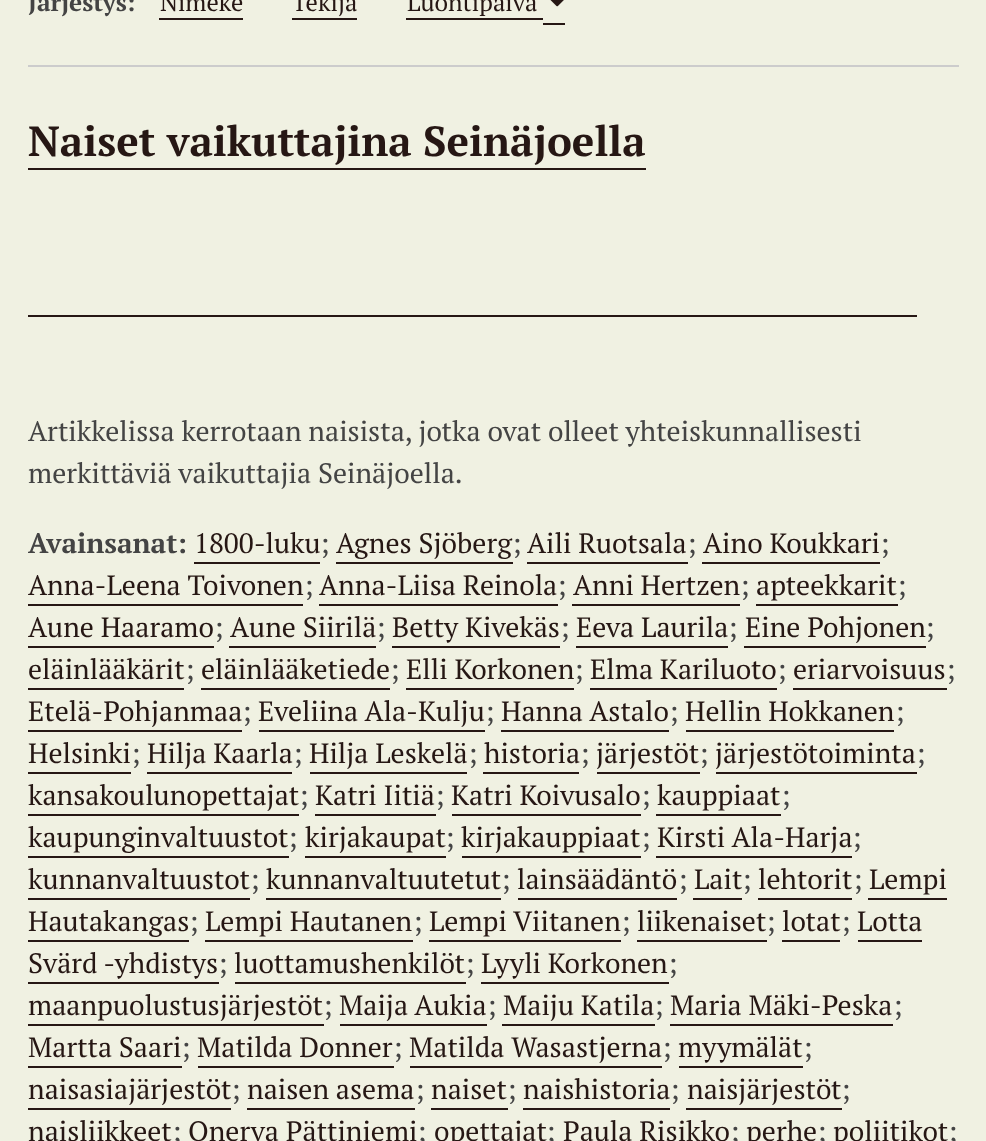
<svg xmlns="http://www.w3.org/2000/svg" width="986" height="1141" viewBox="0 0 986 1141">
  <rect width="100%" height="100%" fill="#f0f1e2"/>
  <text x="28" y="11" font-family="PT Serif" font-size="24.5" font-weight="bold" fill="#444444">Järjestys:</text>
  <text x="160" y="11" font-family="PT Serif" font-size="24.5" fill="#261714">Nimeke</text>
  <rect x="159" y="18" width="84" height="2" fill="#261714"/>
  <text x="292" y="11" font-family="PT Serif" font-size="24.5" fill="#261714">Tekijä</text>
  <rect x="292" y="18" width="65" height="2" fill="#261714"/>
  <rect x="406" y="18" width="137" height="2" fill="#261714"/>
  <rect x="543" y="23" width="22" height="2" fill="#261714"/>
  <text x="407" y="11" font-family="PT Serif" font-size="24.5" fill="#261714">Luontipäivä</text>
  <image x="550" y="0" width="14" height="7" href="img1.png"/>
  <rect x="28" y="65" width="931" height="2" fill="#cccccc"/>
  <text x="28" y="156" font-family="PT Serif" font-size="42" font-weight="bold" fill="#261714">Naiset vaikuttajina Seinäjoella</text>
  <rect x="28" y="168" width="618" height="2" fill="#261714"/>
  <rect x="28" y="315" width="889" height="2" fill="#261714"/>
  <text x="28" y="441" font-family="PT Serif" font-size="28" fill="#444444">Artikkelissa kerrotaan naisista, jotka ovat olleet yhteiskunnallisesti</text>
  <text x="28" y="483" font-family="PT Serif" font-size="28" fill="#444444">merkittäviä vaikuttajia Seinäjoella.</text>
  <text x="28" y="553" font-family="PT Serif" font-size="28" font-weight="bold" fill="#444444">Avainsanat:</text>
  <text x="194" y="553" font-family="PT Serif" font-size="28" fill="#261714">1800-luku</text>
  <rect x="194" y="562" width="126" height="2" fill="#261714"/>
  <text x="320" y="553" font-family="PT Serif" font-size="28" fill="#444444">;</text>
  <text x="336" y="553" font-family="PT Serif" font-size="28" fill="#261714">Agnes Sjöberg</text>
  <rect x="336" y="562" width="177" height="2" fill="#261714"/>
  <text x="512" y="553" font-family="PT Serif" font-size="28" fill="#444444">;</text>
  <text x="527" y="553" font-family="PT Serif" font-size="28" fill="#261714">Aili Ruotsala</text>
  <rect x="527" y="562" width="161" height="2" fill="#261714"/>
  <text x="687" y="553" font-family="PT Serif" font-size="28" fill="#444444">;</text>
  <text x="703" y="553" font-family="PT Serif" font-size="28" fill="#261714">Aino Koukkari</text>
  <rect x="702" y="562" width="178" height="2" fill="#261714"/>
  <text x="880" y="553" font-family="PT Serif" font-size="28" fill="#444444">;</text>
  <text x="28" y="595" font-family="PT Serif" font-size="28" fill="#261714">Anna-Leena Toivonen</text>
  <rect x="28" y="604" width="275" height="2" fill="#261714"/>
  <text x="304" y="595" font-family="PT Serif" font-size="28" fill="#444444">;</text>
  <text x="319" y="595" font-family="PT Serif" font-size="28" fill="#261714">Anna-Liisa Reinola</text>
  <rect x="319" y="604" width="239" height="2" fill="#261714"/>
  <text x="557" y="595" font-family="PT Serif" font-size="28" fill="#444444">;</text>
  <text x="573" y="595" font-family="PT Serif" font-size="28" fill="#261714">Anni Hertzen</text>
  <rect x="572" y="604" width="168" height="2" fill="#261714"/>
  <text x="740" y="595" font-family="PT Serif" font-size="28" fill="#444444">;</text>
  <text x="756" y="595" font-family="PT Serif" font-size="28" fill="#261714">apteekkarit</text>
  <rect x="756" y="604" width="142" height="2" fill="#261714"/>
  <text x="897" y="595" font-family="PT Serif" font-size="28" fill="#444444">;</text>
  <text x="28" y="637" font-family="PT Serif" font-size="28" fill="#261714">Aune Haaramo</text>
  <rect x="28" y="646" width="186" height="2" fill="#261714"/>
  <text x="214" y="637" font-family="PT Serif" font-size="28" fill="#444444">;</text>
  <text x="230" y="637" font-family="PT Serif" font-size="28" fill="#261714">Aune Siirilä</text>
  <rect x="229" y="646" width="147" height="2" fill="#261714"/>
  <text x="376" y="637" font-family="PT Serif" font-size="28" fill="#444444">;</text>
  <text x="392" y="637" font-family="PT Serif" font-size="28" fill="#261714">Betty Kivekäs</text>
  <rect x="392" y="646" width="168" height="2" fill="#261714"/>
  <text x="560" y="637" font-family="PT Serif" font-size="28" fill="#444444">;</text>
  <text x="576" y="637" font-family="PT Serif" font-size="28" fill="#261714">Eeva Laurila</text>
  <rect x="576" y="646" width="152" height="2" fill="#261714"/>
  <text x="728" y="637" font-family="PT Serif" font-size="28" fill="#444444">;</text>
  <text x="745" y="637" font-family="PT Serif" font-size="28" fill="#261714">Eine Pohjonen</text>
  <rect x="744" y="646" width="182" height="2" fill="#261714"/>
  <text x="925" y="637" font-family="PT Serif" font-size="28" fill="#444444">;</text>
  <text x="28" y="679" font-family="PT Serif" font-size="28" fill="#261714">eläinlääkärit</text>
  <rect x="28" y="688" width="156" height="2" fill="#261714"/>
  <text x="185" y="679" font-family="PT Serif" font-size="28" fill="#444444">;</text>
  <text x="201" y="679" font-family="PT Serif" font-size="28" fill="#261714">eläinlääketiede</text>
  <rect x="201" y="688" width="189" height="2" fill="#261714"/>
  <text x="390" y="679" font-family="PT Serif" font-size="28" fill="#444444">;</text>
  <text x="406" y="679" font-family="PT Serif" font-size="28" fill="#261714">Elli Korkonen</text>
  <rect x="406" y="688" width="168" height="2" fill="#261714"/>
  <text x="574" y="679" font-family="PT Serif" font-size="28" fill="#444444">;</text>
  <text x="590" y="679" font-family="PT Serif" font-size="28" fill="#261714">Elma Kariluoto</text>
  <rect x="590" y="688" width="187" height="2" fill="#261714"/>
  <text x="777" y="679" font-family="PT Serif" font-size="28" fill="#444444">;</text>
  <text x="793" y="679" font-family="PT Serif" font-size="28" fill="#261714">eriarvoisuus</text>
  <rect x="793" y="688" width="154" height="2" fill="#261714"/>
  <text x="946" y="679" font-family="PT Serif" font-size="28" fill="#444444">;</text>
  <text x="28" y="721" font-family="PT Serif" font-size="28" fill="#261714">Etelä-Pohjanmaa</text>
  <rect x="28" y="730" width="214" height="2" fill="#261714"/>
  <text x="242" y="721" font-family="PT Serif" font-size="28" fill="#444444">;</text>
  <text x="258" y="721" font-family="PT Serif" font-size="28" fill="#261714">Eveliina Ala-Kulju</text>
  <rect x="259" y="730" width="226" height="2" fill="#261714"/>
  <text x="485" y="721" font-family="PT Serif" font-size="28" fill="#444444">;</text>
  <text x="501" y="721" font-family="PT Serif" font-size="28" fill="#261714">Hanna Astalo</text>
  <rect x="501" y="730" width="168" height="2" fill="#261714"/>
  <text x="669" y="721" font-family="PT Serif" font-size="28" fill="#444444">;</text>
  <text x="685" y="721" font-family="PT Serif" font-size="28" fill="#261714">Hellin Hokkanen</text>
  <rect x="686" y="730" width="208" height="2" fill="#261714"/>
  <text x="895" y="721" font-family="PT Serif" font-size="28" fill="#444444">;</text>
  <text x="28" y="763" font-family="PT Serif" font-size="28" fill="#261714">Helsinki</text>
  <rect x="28" y="772" width="103" height="2" fill="#261714"/>
  <text x="131" y="763" font-family="PT Serif" font-size="28" fill="#444444">;</text>
  <text x="147" y="763" font-family="PT Serif" font-size="28" fill="#261714">Hilja Kaarla</text>
  <rect x="147" y="772" width="145" height="2" fill="#261714"/>
  <text x="293" y="763" font-family="PT Serif" font-size="28" fill="#444444">;</text>
  <text x="309" y="763" font-family="PT Serif" font-size="28" fill="#261714">Hilja Leskelä</text>
  <rect x="310" y="772" width="157" height="2" fill="#261714"/>
  <text x="468" y="763" font-family="PT Serif" font-size="28" fill="#444444">;</text>
  <text x="484" y="763" font-family="PT Serif" font-size="28" fill="#261714">historia</text>
  <rect x="483" y="772" width="96" height="2" fill="#261714"/>
  <text x="580" y="763" font-family="PT Serif" font-size="28" fill="#444444">;</text>
  <text x="596" y="763" font-family="PT Serif" font-size="28" fill="#261714">järjestöt</text>
  <rect x="597" y="772" width="103" height="2" fill="#261714"/>
  <text x="699" y="763" font-family="PT Serif" font-size="28" fill="#444444">;</text>
  <text x="715" y="763" font-family="PT Serif" font-size="28" fill="#261714">järjestötoiminta</text>
  <rect x="716" y="772" width="201" height="2" fill="#261714"/>
  <text x="916" y="763" font-family="PT Serif" font-size="28" fill="#444444">;</text>
  <text x="28" y="805" font-family="PT Serif" font-size="28" fill="#261714">kansakoulunopettajat</text>
  <rect x="28" y="814" width="271" height="2" fill="#261714"/>
  <text x="299" y="805" font-family="PT Serif" font-size="28" fill="#444444">;</text>
  <text x="315" y="805" font-family="PT Serif" font-size="28" fill="#261714">Katri Iitiä</text>
  <rect x="315" y="814" width="121" height="2" fill="#261714"/>
  <text x="435" y="805" font-family="PT Serif" font-size="28" fill="#444444">;</text>
  <text x="451" y="805" font-family="PT Serif" font-size="28" fill="#261714">Katri Koivusalo</text>
  <rect x="452" y="814" width="189" height="2" fill="#261714"/>
  <text x="641" y="805" font-family="PT Serif" font-size="28" fill="#444444">;</text>
  <text x="657" y="805" font-family="PT Serif" font-size="28" fill="#261714">kauppiaat</text>
  <rect x="656" y="814" width="125" height="2" fill="#261714"/>
  <text x="781" y="805" font-family="PT Serif" font-size="28" fill="#444444">;</text>
  <text x="28" y="847" font-family="PT Serif" font-size="28" fill="#261714">kaupunginvaltuustot</text>
  <rect x="28" y="856" width="261" height="2" fill="#261714"/>
  <text x="288" y="847" font-family="PT Serif" font-size="28" fill="#444444">;</text>
  <text x="305" y="847" font-family="PT Serif" font-size="28" fill="#261714">kirjakaupat</text>
  <rect x="305" y="856" width="141" height="2" fill="#261714"/>
  <text x="445" y="847" font-family="PT Serif" font-size="28" fill="#444444">;</text>
  <text x="461" y="847" font-family="PT Serif" font-size="28" fill="#261714">kirjakauppiaat</text>
  <rect x="462" y="856" width="179" height="2" fill="#261714"/>
  <text x="641" y="847" font-family="PT Serif" font-size="28" fill="#444444">;</text>
  <text x="657" y="847" font-family="PT Serif" font-size="28" fill="#261714">Kirsti Ala-Harja</text>
  <rect x="656" y="856" width="196" height="2" fill="#261714"/>
  <text x="852" y="847" font-family="PT Serif" font-size="28" fill="#444444">;</text>
  <text x="28" y="889" font-family="PT Serif" font-size="28" fill="#261714">kunnanvaltuustot</text>
  <rect x="28" y="898" width="222" height="2" fill="#261714"/>
  <text x="250" y="889" font-family="PT Serif" font-size="28" fill="#444444">;</text>
  <text x="266" y="889" font-family="PT Serif" font-size="28" fill="#261714">kunnanvaltuutetut</text>
  <rect x="266" y="898" width="235" height="2" fill="#261714"/>
  <text x="501" y="889" font-family="PT Serif" font-size="28" fill="#444444">;</text>
  <text x="517" y="889" font-family="PT Serif" font-size="28" fill="#261714">lainsäädäntö</text>
  <rect x="518" y="898" width="159" height="2" fill="#261714"/>
  <text x="678" y="889" font-family="PT Serif" font-size="28" fill="#444444">;</text>
  <text x="694" y="889" font-family="PT Serif" font-size="28" fill="#261714">Lait</text>
  <rect x="693" y="898" width="49" height="2" fill="#261714"/>
  <text x="742" y="889" font-family="PT Serif" font-size="28" fill="#444444">;</text>
  <text x="758" y="889" font-family="PT Serif" font-size="28" fill="#261714">lehtorit</text>
  <rect x="758" y="898" width="94" height="2" fill="#261714"/>
  <text x="853" y="889" font-family="PT Serif" font-size="28" fill="#444444">;</text>
  <text x="869" y="889" font-family="PT Serif" font-size="28" fill="#261714">Lempi</text>
  <rect x="868" y="898" width="79" height="2" fill="#261714"/>
  <text x="28" y="931" font-family="PT Serif" font-size="28" fill="#261714">Hautakangas</text>
  <rect x="28" y="940" width="161" height="2" fill="#261714"/>
  <text x="189" y="931" font-family="PT Serif" font-size="28" fill="#444444">;</text>
  <text x="205" y="931" font-family="PT Serif" font-size="28" fill="#261714">Lempi Hautanen</text>
  <rect x="205" y="940" width="208" height="2" fill="#261714"/>
  <text x="413" y="931" font-family="PT Serif" font-size="28" fill="#444444">;</text>
  <text x="429" y="931" font-family="PT Serif" font-size="28" fill="#261714">Lempi Viitanen</text>
  <rect x="429" y="940" width="192" height="2" fill="#261714"/>
  <text x="621" y="931" font-family="PT Serif" font-size="28" fill="#444444">;</text>
  <text x="637" y="931" font-family="PT Serif" font-size="28" fill="#261714">liikenaiset</text>
  <rect x="637" y="940" width="130" height="2" fill="#261714"/>
  <text x="766" y="931" font-family="PT Serif" font-size="28" fill="#444444">;</text>
  <text x="782" y="931" font-family="PT Serif" font-size="28" fill="#261714">lotat</text>
  <rect x="782" y="940" width="58" height="2" fill="#261714"/>
  <text x="841" y="931" font-family="PT Serif" font-size="28" fill="#444444">;</text>
  <text x="857" y="931" font-family="PT Serif" font-size="28" fill="#261714">Lotta</text>
  <rect x="858" y="940" width="64" height="2" fill="#261714"/>
  <text x="28" y="973" font-family="PT Serif" font-size="28" fill="#261714">Svärd -yhdistys</text>
  <rect x="28" y="982" width="191" height="2" fill="#261714"/>
  <text x="218" y="973" font-family="PT Serif" font-size="28" fill="#444444">;</text>
  <text x="234" y="973" font-family="PT Serif" font-size="28" fill="#261714">luottamushenkilöt</text>
  <rect x="235" y="982" width="231" height="2" fill="#261714"/>
  <text x="465" y="973" font-family="PT Serif" font-size="28" fill="#444444">;</text>
  <text x="481" y="973" font-family="PT Serif" font-size="28" fill="#261714">Lyyli Korkonen</text>
  <rect x="481" y="982" width="188" height="2" fill="#261714"/>
  <text x="668" y="973" font-family="PT Serif" font-size="28" fill="#444444">;</text>
  <text x="28" y="1015" font-family="PT Serif" font-size="28" fill="#261714">maanpuolustusjärjestöt</text>
  <rect x="28" y="1024" width="296" height="2" fill="#261714"/>
  <text x="323" y="1015" font-family="PT Serif" font-size="28" fill="#444444">;</text>
  <text x="339" y="1015" font-family="PT Serif" font-size="28" fill="#261714">Maija Aukia</text>
  <rect x="340" y="1024" width="147" height="2" fill="#261714"/>
  <text x="487" y="1015" font-family="PT Serif" font-size="28" fill="#444444">;</text>
  <text x="503" y="1015" font-family="PT Serif" font-size="28" fill="#261714">Maiju Katila</text>
  <rect x="502" y="1024" width="153" height="2" fill="#261714"/>
  <text x="654" y="1015" font-family="PT Serif" font-size="28" fill="#444444">;</text>
  <text x="670" y="1015" font-family="PT Serif" font-size="28" fill="#261714">Maria Mäki-Peska</text>
  <rect x="670" y="1024" width="223" height="2" fill="#261714"/>
  <text x="893" y="1015" font-family="PT Serif" font-size="28" fill="#444444">;</text>
  <text x="28" y="1057" font-family="PT Serif" font-size="28" fill="#261714">Martta Saari</text>
  <rect x="28" y="1066" width="154" height="2" fill="#261714"/>
  <text x="181" y="1057" font-family="PT Serif" font-size="28" fill="#444444">;</text>
  <text x="197" y="1057" font-family="PT Serif" font-size="28" fill="#261714">Matilda Donner</text>
  <rect x="198" y="1066" width="196" height="2" fill="#261714"/>
  <text x="393" y="1057" font-family="PT Serif" font-size="28" fill="#444444">;</text>
  <text x="409" y="1057" font-family="PT Serif" font-size="28" fill="#261714">Matilda Wasastjerna</text>
  <rect x="410" y="1066" width="252" height="2" fill="#261714"/>
  <text x="662" y="1057" font-family="PT Serif" font-size="28" fill="#444444">;</text>
  <text x="678" y="1057" font-family="PT Serif" font-size="28" fill="#261714">myymälät</text>
  <rect x="679" y="1066" width="124" height="2" fill="#261714"/>
  <text x="803" y="1057" font-family="PT Serif" font-size="28" fill="#444444">;</text>
  <text x="28" y="1099" font-family="PT Serif" font-size="28" fill="#261714">naisasiajärjestöt</text>
  <rect x="28" y="1108" width="203" height="2" fill="#261714"/>
  <text x="231" y="1099" font-family="PT Serif" font-size="28" fill="#444444">;</text>
  <text x="247" y="1099" font-family="PT Serif" font-size="28" fill="#261714">naisen asema</text>
  <rect x="247" y="1108" width="168" height="2" fill="#261714"/>
  <text x="415" y="1099" font-family="PT Serif" font-size="28" fill="#444444">;</text>
  <text x="431" y="1099" font-family="PT Serif" font-size="28" fill="#261714">naiset</text>
  <rect x="431" y="1108" width="77" height="2" fill="#261714"/>
  <text x="507" y="1099" font-family="PT Serif" font-size="28" fill="#444444">;</text>
  <text x="523" y="1099" font-family="PT Serif" font-size="28" fill="#261714">naishistoria</text>
  <rect x="523" y="1108" width="147" height="2" fill="#261714"/>
  <text x="670" y="1099" font-family="PT Serif" font-size="28" fill="#444444">;</text>
  <text x="687" y="1099" font-family="PT Serif" font-size="28" fill="#261714">naisjärjestöt</text>
  <rect x="686" y="1108" width="156" height="2" fill="#261714"/>
  <text x="841" y="1099" font-family="PT Serif" font-size="28" fill="#444444">;</text>
  <text x="28" y="1141" font-family="PT Serif" font-size="28" fill="#261714">naisliikkeet</text>
  <text x="172" y="1141" font-family="PT Serif" font-size="28" fill="#444444">;</text>
  <text x="188" y="1141" font-family="PT Serif" font-size="28" fill="#261714">Onerva Pättiniemi</text>
  <text x="417" y="1141" font-family="PT Serif" font-size="28" fill="#444444">;</text>
  <text x="434" y="1141" font-family="PT Serif" font-size="28" fill="#261714">opettajat</text>
  <text x="546" y="1141" font-family="PT Serif" font-size="28" fill="#444444">;</text>
  <text x="563" y="1141" font-family="PT Serif" font-size="28" fill="#261714">Paula Risikko</text>
  <text x="730" y="1141" font-family="PT Serif" font-size="28" fill="#444444">;</text>
  <text x="746" y="1141" font-family="PT Serif" font-size="28" fill="#261714">perhe</text>
  <text x="817" y="1141" font-family="PT Serif" font-size="28" fill="#444444">;</text>
  <text x="833" y="1141" font-family="PT Serif" font-size="28" fill="#261714">poliitikot</text>
  <text x="948" y="1141" font-family="PT Serif" font-size="28" fill="#444444">;</text>
</svg>
